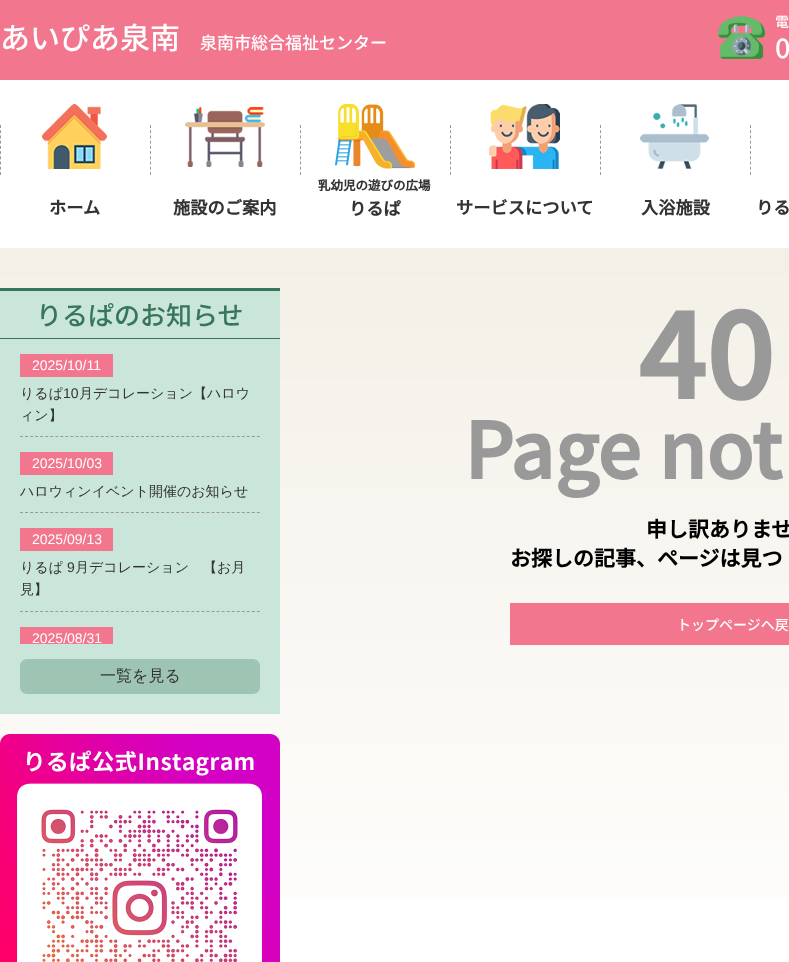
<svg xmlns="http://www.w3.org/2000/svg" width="789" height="962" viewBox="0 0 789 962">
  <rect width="100%" height="100%" fill="#ffffff"/>
  <rect x="0" y="0" width="789" height="80" fill="#f1768e"/>
  <text x="0" y="49" font-family="Noto Sans JP" font-size="30" font-weight="100" fill="#ffffff">あいぴあ泉南</text>
  <text x="200" y="49" font-family="Noto Sans JP" font-size="17" font-weight="100" fill="#ffffff">泉南市総合福祉センター</text>
  <image x="718" y="16" width="47" height="43" href="img1.png"/>
  <text x="775" y="27" font-family="Noto Sans JP" font-size="14" font-weight="100" fill="#ffffff">電</text>
  <text x="775" y="58" font-family="Noto Sans JP" font-size="27" font-weight="100" letter-spacing="1" fill="#ffffff">0</text>
  <path d="M.5 125V175" fill="none" stroke="#999999" stroke-dasharray="3 2.22"/>
  <image x="42" y="104" width="65" height="65" href="img2.png"/>
  <text x="49" y="214" font-family="Noto Sans JP" font-size="17.25" font-weight="bold" fill="#333333">ホーム</text>
  <path d="M150.5 125V175" fill="none" stroke="#999999" stroke-dasharray="3 2.22"/>
  <image x="185" y="107" width="80" height="60" href="img3.png"/>
  <text x="173" y="214" font-family="Noto Sans JP" font-size="17.25" font-weight="bold" fill="#333333">施設のご案内</text>
  <path d="M300.5 125V175" fill="none" stroke="#999999" stroke-dasharray="3 2.22"/>
  <image x="335" y="104" width="80" height="65" href="img4.png"/>
  <text x="318" y="190" font-family="Noto Sans JP" font-size="12.5" font-weight="bold" fill="#333333">乳幼児の遊びの広場</text>
  <text x="349" y="215" font-family="Noto Sans JP" font-size="17.25" font-weight="bold" fill="#333333">りるぱ</text>
  <path d="M450.5 125V175" fill="none" stroke="#999999" stroke-dasharray="3 2.22"/>
  <image x="489" y="104" width="71" height="65" href="img5.png"/>
  <text x="456" y="214" font-family="Noto Sans JP" font-size="17.25" font-weight="bold" fill="#333333">サービスについて</text>
  <path d="M600.5 125V175" fill="none" stroke="#999999" stroke-dasharray="3 2.22"/>
  <image x="640" y="104" width="69" height="65" href="img6.png"/>
  <text x="641" y="214" font-family="Noto Sans JP" font-size="17.25" font-weight="bold" fill="#333333">入浴施設</text>
  <path d="M750.5 125V175" fill="none" stroke="#999999" stroke-dasharray="3 2.22"/>
  <text x="756" y="214" font-family="Noto Sans JP" font-size="17.25" font-weight="bold" fill="#333333">りる</text>
  <image x="0" y="248" width="789" height="649" href="img7.png"/>
  <rect x="0" y="291" width="280" height="423" fill="#cae6da"/>
  <rect x="0" y="288" width="280" height="3" fill="#38765b"/>
  <rect x="0" y="338" width="280" height="1" fill="#38765b"/>
  <text x="36" y="325" font-family="Noto Sans JP" font-size="26" font-weight="100" fill="#38765b">りるぱのお知らせ</text>
  <path d="M20 436.5H260" fill="none" stroke="#999999" stroke-dasharray="3 2.04"/>
  <rect x="20" y="354" width="93" height="23" fill="#f1768e"/>
  <text x="32" y="370" font-family="Liberation Sans" font-size="14" fill="#ffffff">2025/10/11</text>
  <text x="20" y="398" font-family="WenQuanYi Zen Hei" font-size="14" font-weight="500" fill="#333333">りるぱ</text>
  <text x="63" y="398" font-family="Liberation Sans" font-size="14" fill="#333333">10</text>
  <text x="79" y="398" font-family="WenQuanYi Zen Hei" font-size="14" font-weight="500" fill="#333333">月デコレーション【ハロウ</text>
  <text x="20" y="420" font-family="WenQuanYi Zen Hei" font-size="14" font-weight="500" fill="#333333">ィン】</text>
  <path d="M20 512.5H260" fill="none" stroke="#999999" stroke-dasharray="3 2.04"/>
  <rect x="20" y="452" width="93" height="23" fill="#f1768e"/>
  <text x="32" y="468" font-family="Liberation Sans" font-size="14" fill="#ffffff">2025/10/03</text>
  <text x="20" y="496" font-family="WenQuanYi Zen Hei" font-size="14" font-weight="500" fill="#333333">ハロウィンイベント開催のお知らせ</text>
  <path d="M20 611.5H260" fill="none" stroke="#999999" stroke-dasharray="3 2.04"/>
  <rect x="20" y="528" width="93" height="23" fill="#f1768e"/>
  <text x="32" y="544" font-family="Liberation Sans" font-size="14" fill="#ffffff">2025/09/13</text>
  <text x="20" y="572" font-family="WenQuanYi Zen Hei" font-size="14" font-weight="500" fill="#333333">りるぱ</text>
  <text x="67" y="572" font-family="Liberation Sans" font-size="14" fill="#333333">9</text>
  <text x="75" y="572" font-family="WenQuanYi Zen Hei" font-size="14" font-weight="500" fill="#333333">月デコレーション　【お月</text>
  <text x="20" y="594" font-family="WenQuanYi Zen Hei" font-size="14" font-weight="500" fill="#333333">見】</text>
  <rect x="20" y="627" width="93" height="17" fill="#f1768e"/>
  <text x="32" y="643" font-family="Liberation Sans" font-size="14" fill="#ffffff">2025/08/31</text>
  <rect x="20" y="659" width="240" height="35" rx="7" fill="#9ec4b4"/>
  <text x="100" y="681" font-family="WenQuanYi Zen Hei" font-size="16" font-weight="500" fill="#333333">一覧を見る</text>
  <image x="0" y="734" width="280" height="228" href="img8.png"/>
  <text x="638" y="399" font-family="Noto Sans JP" font-size="119" font-weight="bold" fill="#999999">40</text>
  <text x="464" y="479" font-family="Noto Sans JP" font-size="77" font-weight="bold" fill="#999999">Page not</text>
  <text x="646" y="537" font-family="Noto Sans JP" font-size="21" font-weight="bold" fill="#000000">申し訳ありませ</text>
  <text x="510" y="566" font-family="Noto Sans JP" font-size="21" font-weight="bold" fill="#000000">お探しの記事、ページは見つ</text>
  <rect x="510" y="603" width="279" height="42" fill="#f1768e"/>
  <text x="677" y="630" font-family="Noto Sans JP" font-size="14" font-weight="100" fill="#ffffff">トップページへ戻</text>
</svg>
